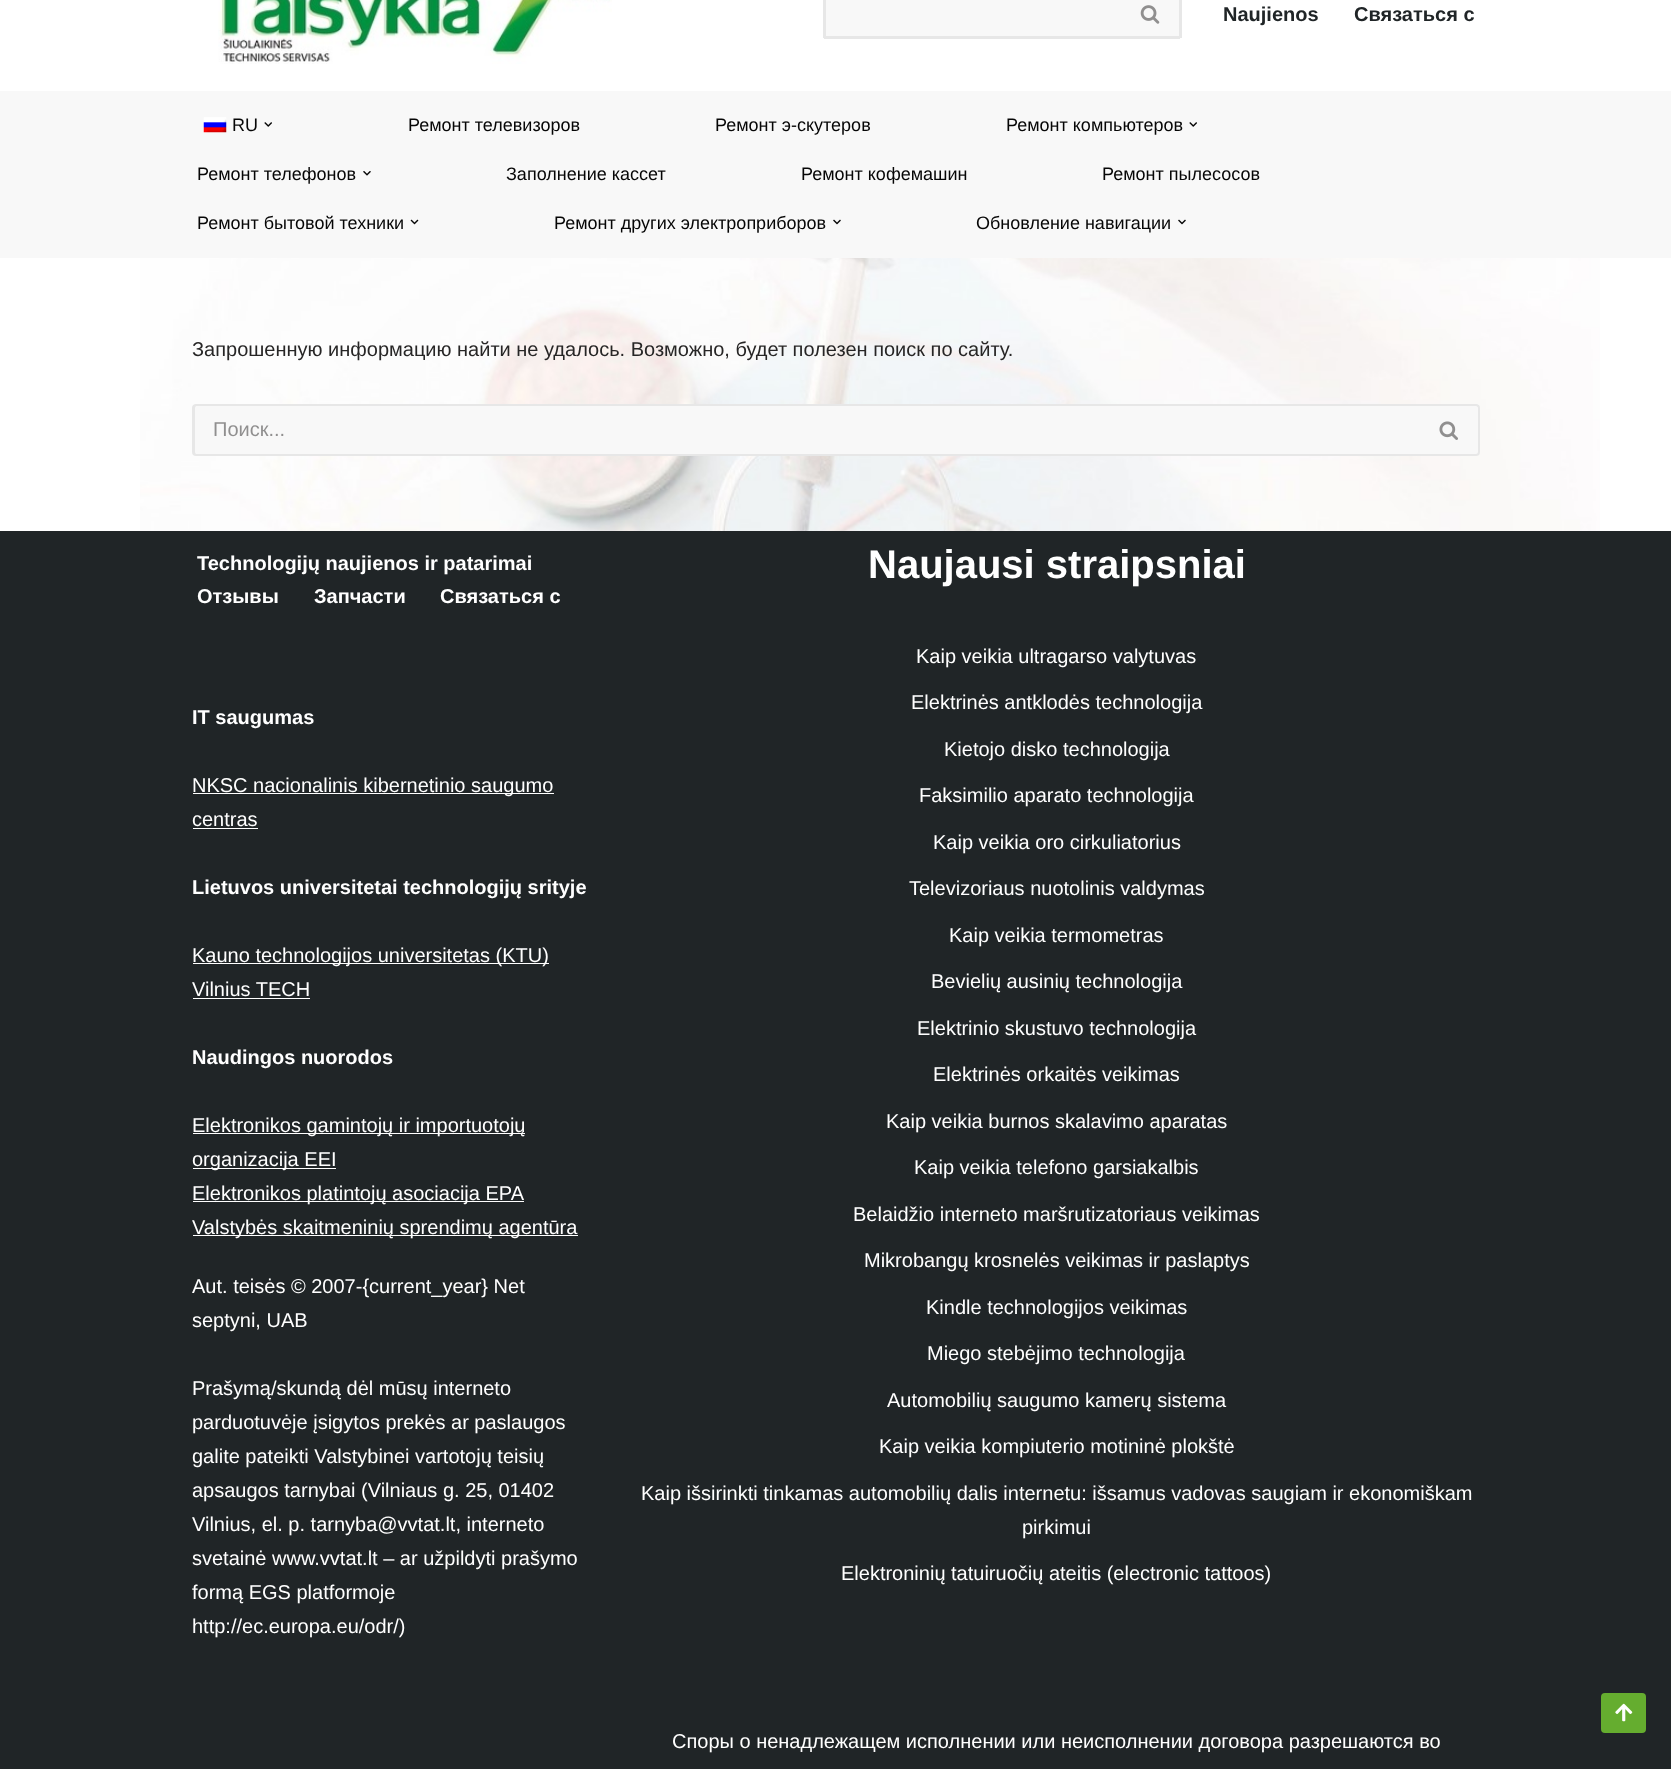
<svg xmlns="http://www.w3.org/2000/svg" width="1671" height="1769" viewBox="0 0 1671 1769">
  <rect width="100%" height="100%" fill="#ffffff"/>
  <image x="140" y="258" width="1460" height="273" href="img1.png"/>
  <image x="218" y="0" width="394" height="64" href="img2.png"/>
  <path d="M825.5-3H1121V39H825.5C824 39 823 38 823 36.5V-.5C823-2 824-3 825.5-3Z" fill="#f8f8f8"/>
  <rect x="824" y="36" width="297" height="3" fill="#e7e7e7"/>
  <rect x="823" y="0" width="3" height="38" fill="#e7e7e7"/>
  <path d="M1121-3H1178.5C1180-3 1181-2 1181-.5V36.5C1181 38 1180 39 1178.5 39H1121Z" fill="#f8f8f8"/>
  <rect x="1179" y="0" width="3" height="38" fill="#e7e7e7"/>
  <rect x="1121" y="36" width="59" height="3" fill="#e7e7e7"/>
  <image x="1140" y="5" width="20" height="19" href="img3.png"/>
  <text x="1223" y="21" font-family="Liberation Sans" font-size="20" font-weight="bold" fill="#202527">Naujienos</text>
  <text x="1354" y="21" font-family="Liberation Sans" font-size="20" font-weight="bold" fill="#202527">Связаться с</text>
  <rect x="0" y="91" width="1671" height="167" fill="#f8f8f8"/>
  <image x="203" y="117" width="24" height="16" href="img4.png"/>
  <text x="232" y="131" font-family="Liberation Sans" font-size="18" fill="#060606">RU</text>
  <image x="264" y="122" width="8" height="5" href="img5.png"/>
  <text x="408" y="131" font-family="Liberation Sans" font-size="18" fill="#060606">Ремонт телевизоров</text>
  <text x="715" y="131" font-family="Liberation Sans" font-size="18" fill="#060606">Ремонт э-скутеров</text>
  <text x="1006" y="131" font-family="Liberation Sans" font-size="18" fill="#060606">Ремонт компьютеров</text>
  <image x="1189" y="122" width="8" height="5" href="img5.png"/>
  <text x="197" y="180" font-family="Liberation Sans" font-size="18" fill="#060606">Ремонт телефонов</text>
  <image x="363" y="171" width="8" height="5" href="img6.png"/>
  <text x="506" y="180" font-family="Liberation Sans" font-size="18" fill="#060606">Заполнение кассет</text>
  <text x="801" y="180" font-family="Liberation Sans" font-size="18" fill="#060606">Ремонт кофемашин</text>
  <text x="1102" y="180" font-family="Liberation Sans" font-size="18" fill="#060606">Ремонт пылесосов</text>
  <text x="197" y="229" font-family="Liberation Sans" font-size="18" fill="#060606">Ремонт бытовой техники</text>
  <image x="410" y="219" width="9" height="6" href="img7.png"/>
  <text x="554" y="229" font-family="Liberation Sans" font-size="18" fill="#060606">Ремонт других электроприборов</text>
  <image x="833" y="219" width="8" height="6" href="img8.png"/>
  <text x="976" y="229" font-family="Liberation Sans" font-size="18" fill="#060606">Обновление навигации</text>
  <image x="1178" y="219" width="8" height="6" href="img8.png"/>
  <text x="192" y="356" font-family="Liberation Sans" font-size="20" fill="#272626">Запрошенную информацию найти не удалось. Возможно, будет полезен поиск по сайту.</text>
  <path d="M197 404H1420V456H197C195 456 193 454 193 452V408C193 406 195 404 197 404Z" fill="#f8f8f8"/>
  <path d="M196 404H1420V456H196C194 456 192 455 192 452V408C192 405 194 404 196 404ZM196 406H1420V454H196C196 454 195 453 195 452V408C195 407 196 406 196 406Z" fill="#e7e7e7" fill-rule="evenodd"/>
  <text x="213" y="436" font-family="Liberation Sans" font-size="20" fill="#908f8f">Поиск...</text>
  <path d="M1420 404H1476C1478 404 1480 406 1480 408V452C1480 454 1478 456 1476 456H1420Z" fill="#f8f8f8"/>
  <path d="M1420 404H1476C1478 404 1480 405 1480 408V452C1480 455 1478 456 1476 456H1420ZM1420 406H1476C1477 406 1478 407 1478 408V452C1478 453 1477 454 1476 454H1420Z" fill="#e7e7e7" fill-rule="evenodd"/>
  <image x="1439" y="421" width="19" height="19" href="img9.png"/>
  <rect x="0" y="531" width="1671" height="1238" fill="#202527"/>
  <text x="197" y="570" font-family="Liberation Sans" font-size="20" font-weight="bold" fill="#ffffff">Technologijų naujienos ir patarimai</text>
  <text x="197" y="603" font-family="Liberation Sans" font-size="20" font-weight="bold" fill="#ffffff">Отзывы</text>
  <text x="314" y="603" font-family="Liberation Sans" font-size="20" font-weight="bold" fill="#ffffff">Запчасти</text>
  <text x="440" y="603" font-family="Liberation Sans" font-size="20" font-weight="bold" fill="#ffffff">Связаться с</text>
  <text x="192" y="724" font-family="Liberation Sans" font-size="20" font-weight="bold" fill="#ffffff">IT saugumas</text>
  <rect x="193" y="793" width="361" height="1" fill="#ffffff"/>
  <text x="192" y="792" font-family="Liberation Sans" font-size="20" fill="#ffffff">NKSC nacionalinis kibernetinio saugumo</text>
  <text x="192" y="826" font-family="Liberation Sans" font-size="20" fill="#ffffff">centras</text>
  <rect x="193" y="828" width="65" height="1" fill="#ffffff"/>
  <text x="192" y="894" font-family="Liberation Sans" font-size="20" font-weight="bold" fill="#ffffff">Lietuvos universitetai technologijų srityje</text>
  <rect x="193" y="963" width="356" height="1" fill="#ffffff"/>
  <text x="192" y="962" font-family="Liberation Sans" font-size="20" fill="#ffffff">Kauno technologijos universitetas (KTU)</text>
  <text x="192" y="996" font-family="Liberation Sans" font-size="20" fill="#ffffff">Vilnius TECH</text>
  <rect x="193" y="998" width="117" height="1" fill="#ffffff"/>
  <text x="192" y="1064" font-family="Liberation Sans" font-size="20" font-weight="bold" fill="#ffffff">Naudingos nuorodos</text>
  <rect x="193" y="1133" width="332" height="1" fill="#ffffff"/>
  <text x="192" y="1132" font-family="Liberation Sans" font-size="20" fill="#ffffff">Elektronikos gamintojų ir importuotojų</text>
  <rect x="193" y="1168" width="143" height="1" fill="#ffffff"/>
  <text x="192" y="1166" font-family="Liberation Sans" font-size="20" fill="#ffffff">organizacija EEI</text>
  <rect x="193" y="1201" width="331" height="1" fill="#ffffff"/>
  <text x="192" y="1200" font-family="Liberation Sans" font-size="20" fill="#ffffff">Elektronikos platintojų asociacija EPA</text>
  <rect x="193" y="1235" width="385" height="1" fill="#ffffff"/>
  <text x="192" y="1234" font-family="Liberation Sans" font-size="20" fill="#ffffff">Valstybės skaitmeninių sprendimų agentūra</text>
  <text x="192" y="1293" font-family="Liberation Sans" font-size="20" fill="#ffffff">Aut. teisės © 2007-{current_year} Net</text>
  <text x="192" y="1327" font-family="Liberation Sans" font-size="20" fill="#ffffff">septyni, UAB</text>
  <text x="192" y="1395" font-family="Liberation Sans" font-size="20" fill="#ffffff">Prašymą/skundą dėl mūsų interneto</text>
  <text x="192" y="1429" font-family="Liberation Sans" font-size="20" fill="#ffffff">parduotuvėje įsigytos prekės ar paslaugos</text>
  <text x="192" y="1463" font-family="Liberation Sans" font-size="20" fill="#ffffff">galite pateikti Valstybinei vartotojų teisių</text>
  <text x="192" y="1497" font-family="Liberation Sans" font-size="20" fill="#ffffff">apsaugos tarnybai (Vilniaus g. 25, 01402</text>
  <text x="192" y="1531" font-family="Liberation Sans" font-size="20" fill="#ffffff">Vilnius, el. p. tarnyba@vvtat.lt, interneto</text>
  <text x="192" y="1565" font-family="Liberation Sans" font-size="20" fill="#ffffff">svetainė www.vvtat.lt – ar užpildyti prašymo</text>
  <text x="192" y="1599" font-family="Liberation Sans" font-size="20" fill="#ffffff">formą EGS platformoje</text>
  <text x="192" y="1633" font-family="Liberation Sans" font-size="20" fill="#ffffff">http://ec.europa.eu/odr/)</text>
  <text x="868" y="578" font-family="Liberation Sans" font-size="40" font-weight="bold" fill="#ffffff">Naujausi straipsniai</text>
  <text x="916" y="663" font-family="Liberation Sans" font-size="20" fill="#ffffff">Kaip veikia ultragarso valytuvas</text>
  <text x="911" y="709" font-family="Liberation Sans" font-size="20" fill="#ffffff">Elektrinės antklodės technologija</text>
  <text x="944" y="756" font-family="Liberation Sans" font-size="20" fill="#ffffff">Kietojo disko technologija</text>
  <text x="919" y="802" font-family="Liberation Sans" font-size="20" fill="#ffffff">Faksimilio aparato technologija</text>
  <text x="933" y="849" font-family="Liberation Sans" font-size="20" fill="#ffffff">Kaip veikia oro cirkuliatorius</text>
  <text x="909" y="895" font-family="Liberation Sans" font-size="20" fill="#ffffff">Televizoriaus nuotolinis valdymas</text>
  <text x="949" y="942" font-family="Liberation Sans" font-size="20" fill="#ffffff">Kaip veikia termometras</text>
  <text x="931" y="988" font-family="Liberation Sans" font-size="20" fill="#ffffff">Bevielių ausinių technologija</text>
  <text x="917" y="1035" font-family="Liberation Sans" font-size="20" fill="#ffffff">Elektrinio skustuvo technologija</text>
  <text x="933" y="1081" font-family="Liberation Sans" font-size="20" fill="#ffffff">Elektrinės orkaitės veikimas</text>
  <text x="886" y="1128" font-family="Liberation Sans" font-size="20" fill="#ffffff">Kaip veikia burnos skalavimo aparatas</text>
  <text x="914" y="1174" font-family="Liberation Sans" font-size="20" fill="#ffffff">Kaip veikia telefono garsiakalbis</text>
  <text x="853" y="1221" font-family="Liberation Sans" font-size="20" fill="#ffffff">Belaidžio interneto maršrutizatoriaus veikimas</text>
  <text x="864" y="1267" font-family="Liberation Sans" font-size="20" fill="#ffffff">Mikrobangų krosnelės veikimas ir paslaptys</text>
  <text x="926" y="1314" font-family="Liberation Sans" font-size="20" fill="#ffffff">Kindle technologijos veikimas</text>
  <text x="927" y="1360" font-family="Liberation Sans" font-size="20" fill="#ffffff">Miego stebėjimo technologija</text>
  <text x="887" y="1407" font-family="Liberation Sans" font-size="20" fill="#ffffff">Automobilių saugumo kamerų sistema</text>
  <text x="879" y="1453" font-family="Liberation Sans" font-size="20" fill="#ffffff">Kaip veikia kompiuterio motininė plokštė</text>
  <text x="641" y="1500" font-family="Liberation Sans" font-size="20" fill="#ffffff">Kaip išsirinkti tinkamas automobilių dalis internetu: išsamus vadovas saugiam ir ekonomiškam</text>
  <text x="1022" y="1534" font-family="Liberation Sans" font-size="20" fill="#ffffff">pirkimui</text>
  <text x="841" y="1580" font-family="Liberation Sans" font-size="20" fill="#ffffff">Elektroninių tatuiruočių ateitis (electronic tattoos)</text>
  <text x="672" y="1748" font-family="Liberation Sans" font-size="20" fill="#ffffff">Споры о ненадлежащем исполнении или неисполнении договора разрешаются во</text>
  <rect x="1601" y="1693" width="45" height="40" rx="4" fill="#65ad2f"/>
  <image x="1615" y="1703" width="18" height="19" href="img10.png"/>
</svg>
